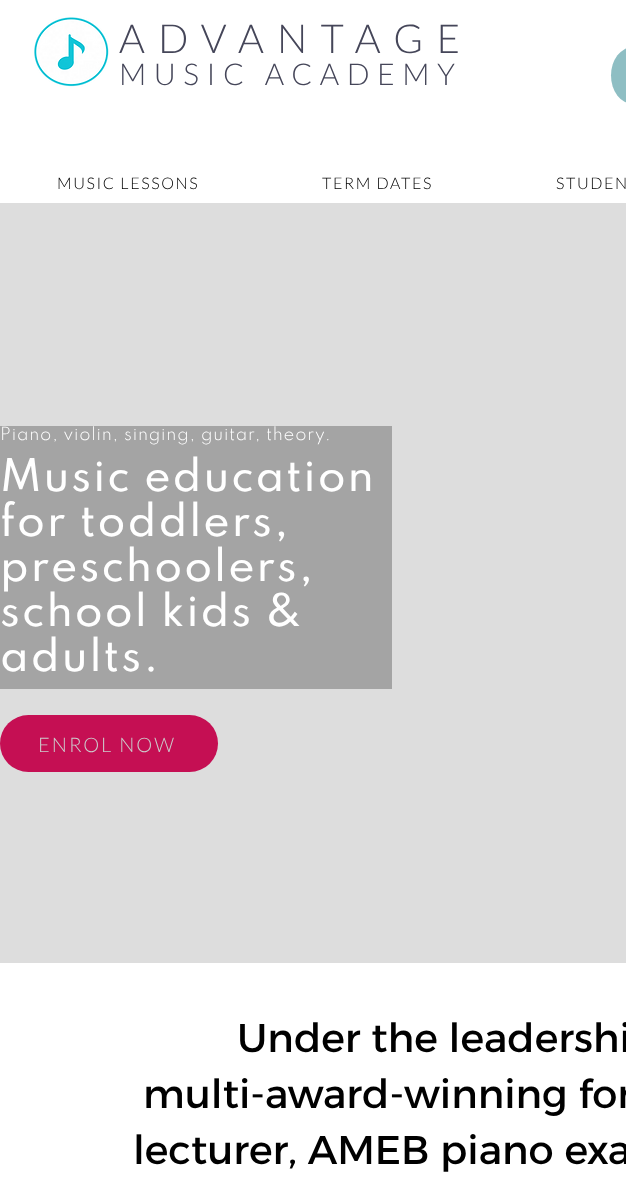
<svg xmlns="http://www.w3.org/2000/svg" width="626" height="1203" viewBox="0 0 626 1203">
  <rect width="100%" height="100%" fill="#ffffff"/>
  <image x="34" y="17" width="75" height="70" href="img1.png"/>
  <text x="119" y="53" font-family="Lato" font-size="40" font-weight="300" letter-spacing="13.25" fill="#454659">ADVANTAGE</text>
  <text x="119" y="85" font-family="Lato" font-size="30" font-weight="300" letter-spacing="7.5" fill="#454659">MUSIC ACADEMY</text>
  <rect x="611" y="47" width="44" height="57" rx="28.5" fill="#8ebec3"/>
  <text x="57" y="189" font-family="Lato" font-size="16" font-weight="300" letter-spacing="1.6" fill="#000000">MUSIC LESSONS</text>
  <text x="322" y="189" font-family="Lato" font-size="16" font-weight="300" letter-spacing="1.6" fill="#000000">TERM DATES</text>
  <text x="556" y="189" font-family="Lato" font-size="16" font-weight="300" letter-spacing="1.6" fill="#000000">STUDEN</text>
  <rect x="0" y="203" width="626" height="760" fill="#dddddd"/>
  <rect x="0" y="426" width="392" height="263" fill="#a4a4a4"/>
  <text x="0" y="440" font-family="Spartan" font-size="16" font-weight="300" letter-spacing="0.8" fill="#ffffff">Piano, violin, singing, guitar, theory.</text>
  <text x="0" y="491" font-family="Spartan" font-size="40" font-weight="500" letter-spacing="2" fill="#ffffff">Music education</text>
  <text x="0" y="536" font-family="Spartan" font-size="40" font-weight="500" letter-spacing="2" fill="#ffffff">for toddlers,</text>
  <text x="0" y="581" font-family="Spartan" font-size="40" font-weight="500" letter-spacing="2" fill="#ffffff">preschoolers,</text>
  <text x="0" y="626" font-family="Spartan" font-size="40" font-weight="500" letter-spacing="2" fill="#ffffff">school kids &amp;</text>
  <text x="0" y="671" font-family="Spartan" font-size="40" font-weight="500" letter-spacing="2" fill="#ffffff">adults.</text>
  <rect x="0" y="715" width="218" height="57" rx="28.5" fill="#c50f53"/>
  <text x="38" y="752" font-family="Lato" font-size="20" font-weight="300" letter-spacing="2" fill="#cccccc">ENROL NOW</text>
  <text x="237" y="1052" font-family="Alexandria" font-size="40" fill="#000000">Under the leadershi</text>
  <text x="143" y="1108" font-family="Alexandria" font-size="40" fill="#000000">multi-award-winning for</text>
  <text x="133" y="1164" font-family="Alexandria" font-size="40" fill="#000000">lecturer, AMEB piano exa</text>
</svg>
